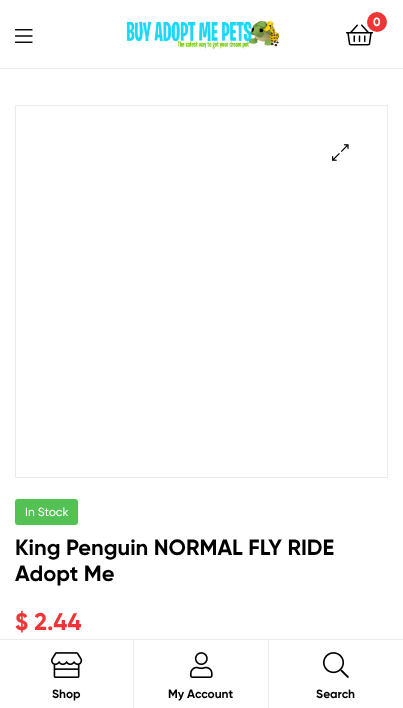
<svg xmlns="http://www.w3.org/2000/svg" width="403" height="708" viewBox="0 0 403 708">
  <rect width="100%" height="100%" fill="#ffffff"/>
  <rect x="0" y="68" width="403" height="1" fill="#ebebeb"/>
  <image x="15" y="29" width="18" height="14" href="img1.png"/>
  <image x="126" y="20" width="154" height="29" href="img2.png"/>
  <image x="346" y="24" width="27" height="22" href="img3.png"/>
  <circle cx="377" cy="22" r="10" fill="#ef3636"/>
  <text x="373" y="26" font-family="Gilroy" font-size="12" font-weight="bold" fill="#ffffff">0</text>
  <rect x="15.5" y="105.5" width="372" height="372" fill="none" stroke="#ebebeb"/>
  <image x="332" y="144" width="17" height="17" href="img4.png"/>
  <rect x="15" y="499" width="63" height="26" rx="3" fill="#54c154"/>
  <text x="25" y="516" font-family="Gilroy" font-size="12" font-weight="500" fill="#ffffff">In Stock</text>
  <text x="15" y="555" font-family="Gilroy" font-size="22" font-weight="bold" fill="#000000">King Penguin NORMAL FLY RIDE</text>
  <text x="15" y="581" font-family="Gilroy" font-size="22" font-weight="bold" fill="#000000">Adopt Me</text>
  <text x="15" y="630" font-family="Gilroy" font-size="24" font-weight="bold" fill="#ef3636">$ 2.44</text>
  <rect x="0" y="639" width="403" height="1" fill="#ebebeb"/>
  <rect x="133" y="640" width="1" height="68" fill="#ebebeb"/>
  <image x="51" y="652" width="32" height="26" href="img5.png"/>
  <text x="52" y="698" font-family="Gilroy" font-size="12" font-weight="bold" fill="#000000">Shop</text>
  <rect x="268" y="640" width="1" height="68" fill="#ebebeb"/>
  <image x="190" y="652" width="23" height="26" href="img6.png"/>
  <text x="168" y="698" font-family="Gilroy" font-size="12" font-weight="bold" fill="#000000">My Account</text>
  <image x="323" y="652" width="26" height="26" href="img7.png"/>
  <text x="316" y="698" font-family="Gilroy" font-size="12" font-weight="bold" fill="#000000">Search</text>
</svg>
